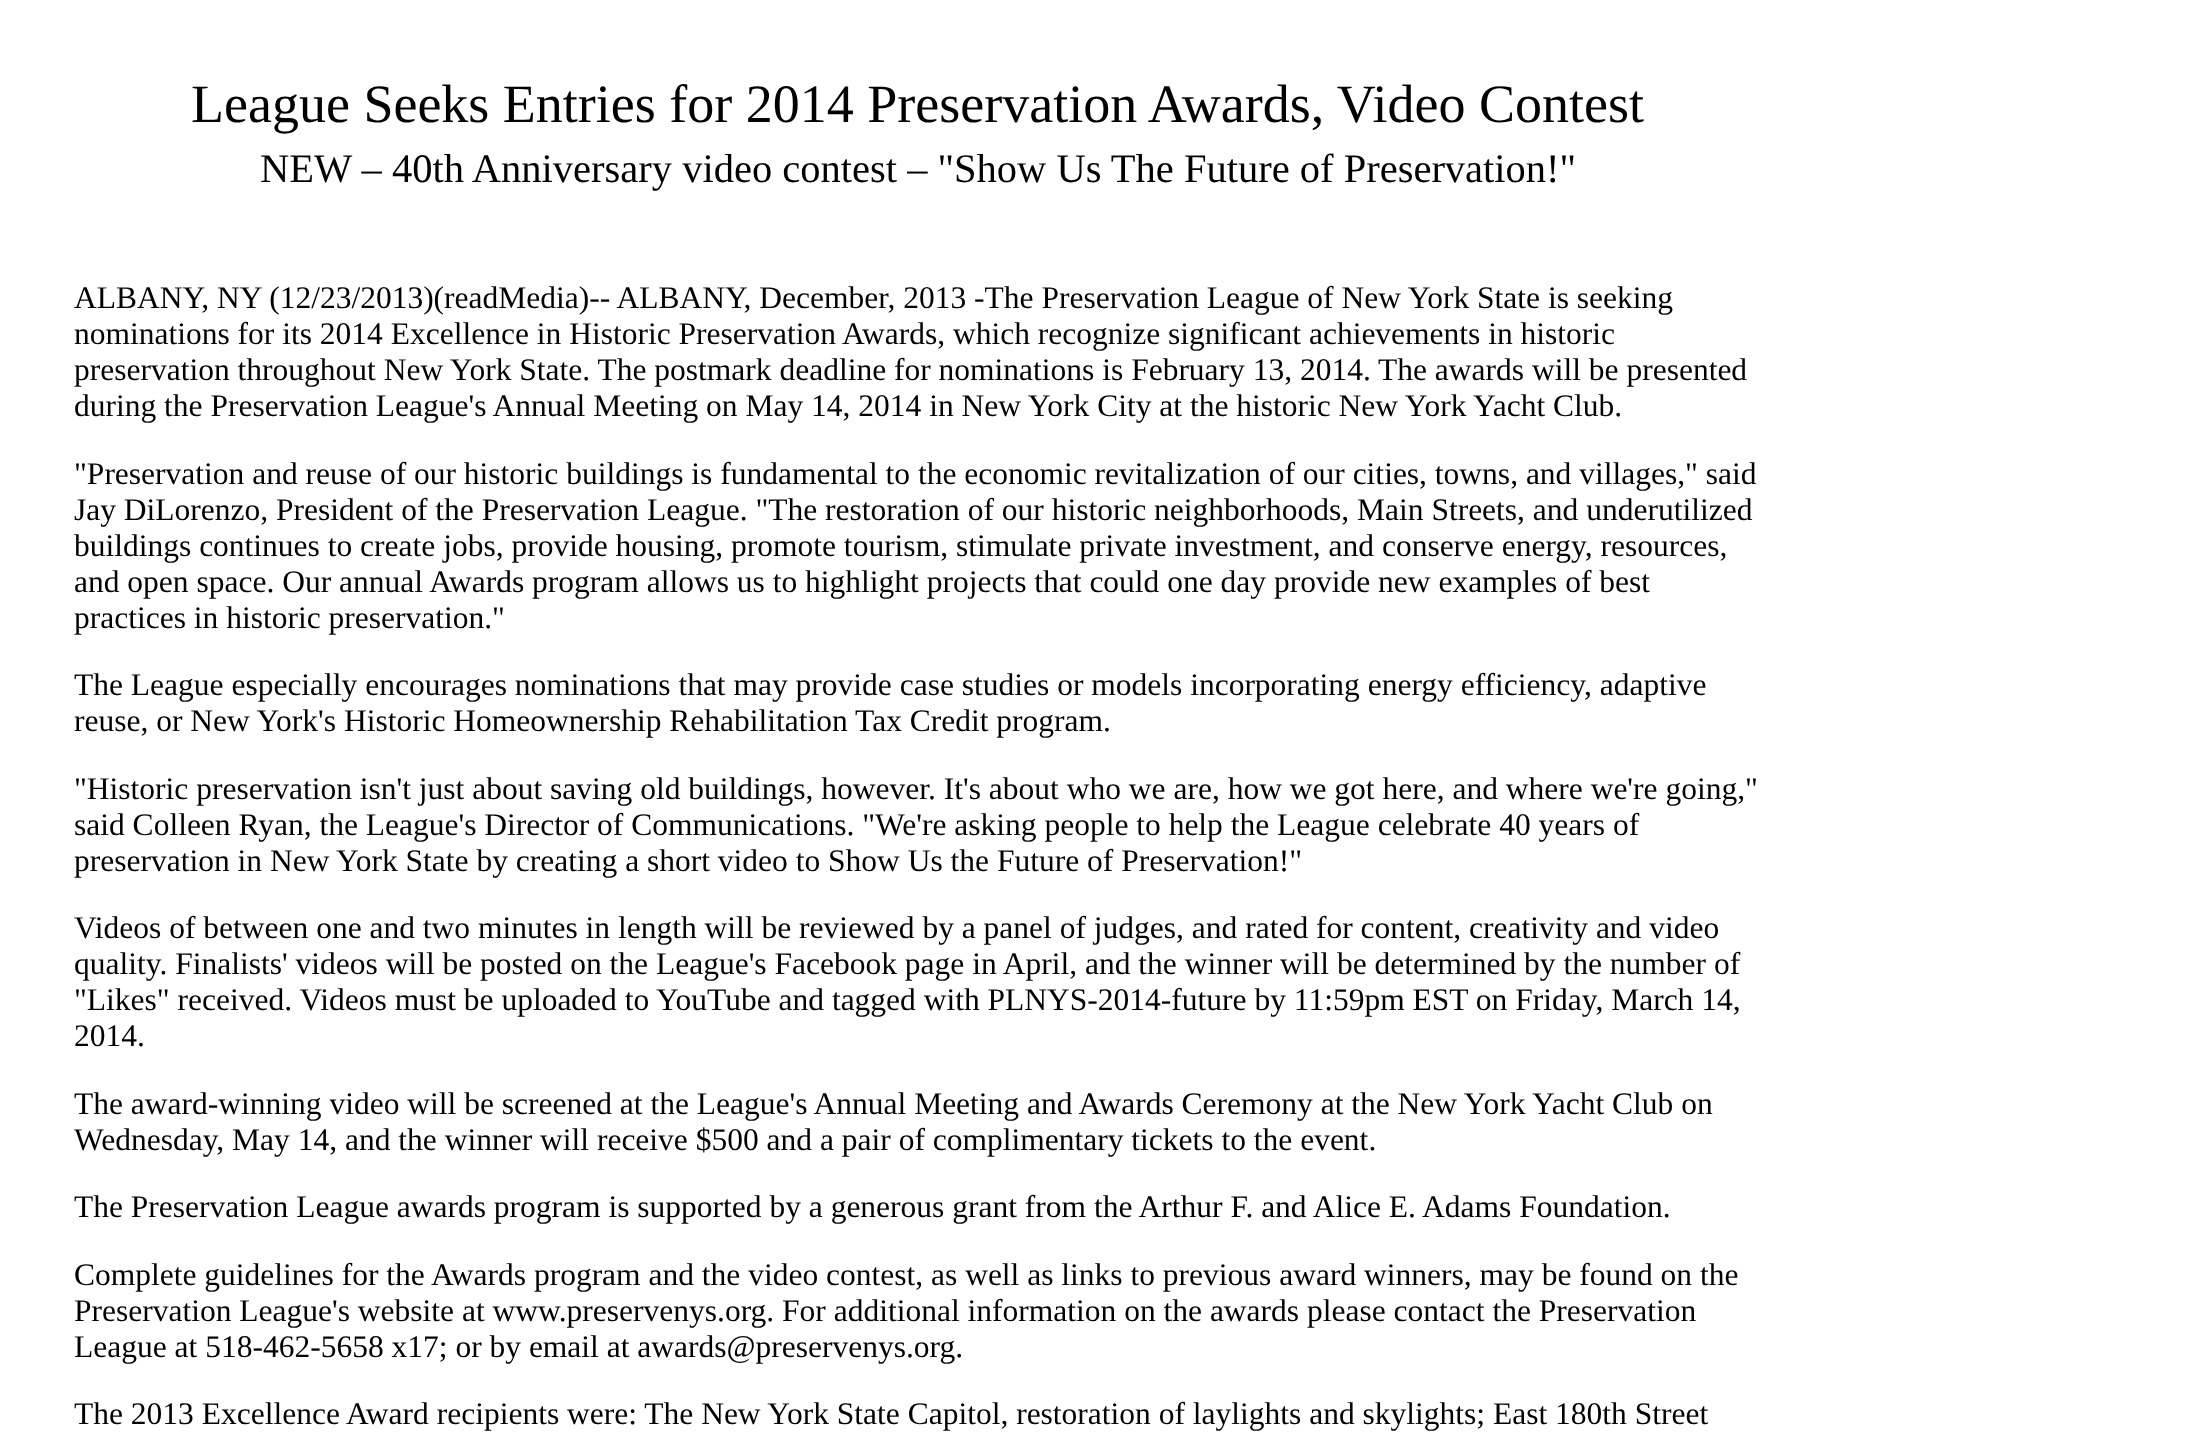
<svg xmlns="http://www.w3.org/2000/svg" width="2212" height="1451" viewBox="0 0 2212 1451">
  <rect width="100%" height="100%" fill="#ffffff"/>
  <text x="191" y="122" font-family="Liberation Serif" font-size="54" fill="#000000">League Seeks Entries for 2014 Preservation Awards, Video Contest</text>
  <text x="260" y="182" font-family="Liberation Serif" font-size="40.5" fill="#000000">NEW – 40th Anniversary video contest – "Show Us The Future of Preservation!"</text>
  <text x="74" y="308" font-family="Liberation Serif" font-size="31.5" fill="#000000">ALBANY, NY (12/23/2013)(readMedia)-- ALBANY, December, 2013 -The Preservation League of New York State is seeking</text>
  <text x="74" y="344" font-family="Liberation Serif" font-size="31.5" fill="#000000">nominations for its 2014 Excellence in Historic Preservation Awards, which recognize significant achievements in historic</text>
  <text x="74" y="380" font-family="Liberation Serif" font-size="31.5" fill="#000000">preservation throughout New York State. The postmark deadline for nominations is February 13, 2014.</text>
  <text x="1378" y="380" font-family="Liberation Serif" font-size="31.5" fill="#000000">The awards will be presented</text>
  <text x="74" y="416" font-family="Liberation Serif" font-size="31.5" fill="#000000">during the Preservation League's Annual Meeting on May 14, 2014 in New York City at the historic New York Yacht Club.</text>
  <text x="74" y="484" font-family="Liberation Serif" font-size="31.5" fill="#000000">"Preservation and reuse of our historic buildings is fundamental to the economic revitalization of our cities, towns, and villages," said</text>
  <text x="74" y="520" font-family="Liberation Serif" font-size="31.5" fill="#000000">Jay DiLorenzo, President of the Preservation League. "The restoration of our historic neighborhoods, Main Streets, and underutilized</text>
  <text x="74" y="556" font-family="Liberation Serif" font-size="31.5" fill="#000000">buildings continues to create jobs, provide housing, promote tourism, stimulate private investment, and conserve energy, resources,</text>
  <text x="74" y="592" font-family="Liberation Serif" font-size="31.5" fill="#000000">and open space. Our annual Awards program allows us to highlight projects that could one day provide new examples of best</text>
  <text x="74" y="628" font-family="Liberation Serif" font-size="31.5" fill="#000000">practices in historic preservation."</text>
  <text x="74" y="695" font-family="Liberation Serif" font-size="31.5" fill="#000000">The League especially encourages nominations that may provide case studies or models incorporating energy efficiency, adaptive</text>
  <text x="74" y="731" font-family="Liberation Serif" font-size="31.5" fill="#000000">reuse, or New York's Historic Homeownership Rehabilitation Tax Credit program.</text>
  <text x="74" y="799" font-family="Liberation Serif" font-size="31.5" fill="#000000">"Historic preservation isn't just about saving old buildings, however. It's about who we are, how we got here, and where we're going,"</text>
  <text x="74" y="835" font-family="Liberation Serif" font-size="31.5" fill="#000000">said Colleen Ryan, the League's Director of Communications. "We're asking people to help the League celebrate 40 years of</text>
  <text x="74" y="871" font-family="Liberation Serif" font-size="31.5" fill="#000000">preservation in New York State by creating a short video to Show Us the Future of Preservation!"</text>
  <text x="74" y="938" font-family="Liberation Serif" font-size="31.5" fill="#000000">Videos of between one and two minutes in length will be reviewed by a panel of judges, and rated for content, creativity and video</text>
  <text x="74" y="974" font-family="Liberation Serif" font-size="31.5" fill="#000000">quality. Finalists' videos will be posted on the League's Facebook page in April, and the winner will be determined by the number of</text>
  <text x="74" y="1010" font-family="Liberation Serif" font-size="31.5" fill="#000000">"Likes" received. Videos must be uploaded to YouTube and tagged with PLNYS-2014-future by 11:59pm EST on Friday, March 14,</text>
  <text x="74" y="1046" font-family="Liberation Serif" font-size="31.5" fill="#000000">2014.</text>
  <text x="74" y="1114" font-family="Liberation Serif" font-size="31.5" fill="#000000">The award-winning video will be screened at the League's Annual Meeting and Awards Ceremony at the New York Yacht Club on</text>
  <text x="74" y="1150" font-family="Liberation Serif" font-size="31.5" fill="#000000">Wednesday, May 14, and the winner will receive $500 and a pair of complimentary tickets to the event.</text>
  <text x="74" y="1217" font-family="Liberation Serif" font-size="31.5" fill="#000000">The Preservation League awards program is supported by a generous grant from the Arthur F. and Alice E. Adams Foundation.</text>
  <text x="74" y="1285" font-family="Liberation Serif" font-size="31.5" fill="#000000">Complete guidelines for the Awards program and the video contest, as well as links to previous award winners, may be found on the</text>
  <text x="74" y="1321" font-family="Liberation Serif" font-size="31.5" fill="#000000">Preservation League's website at www.preservenys.org. For additional information on the awards please contact the Preservation</text>
  <text x="74" y="1357" font-family="Liberation Serif" font-size="31.5" fill="#000000">League at 518-462-5658 x17; or by email at awards@preservenys.org.</text>
  <text x="74" y="1424" font-family="Liberation Serif" font-size="31.5" fill="#000000">The 2013 Excellence Award recipients were: The New York State Capitol, restoration of laylights and skylights; East 180th Street</text>
</svg>
